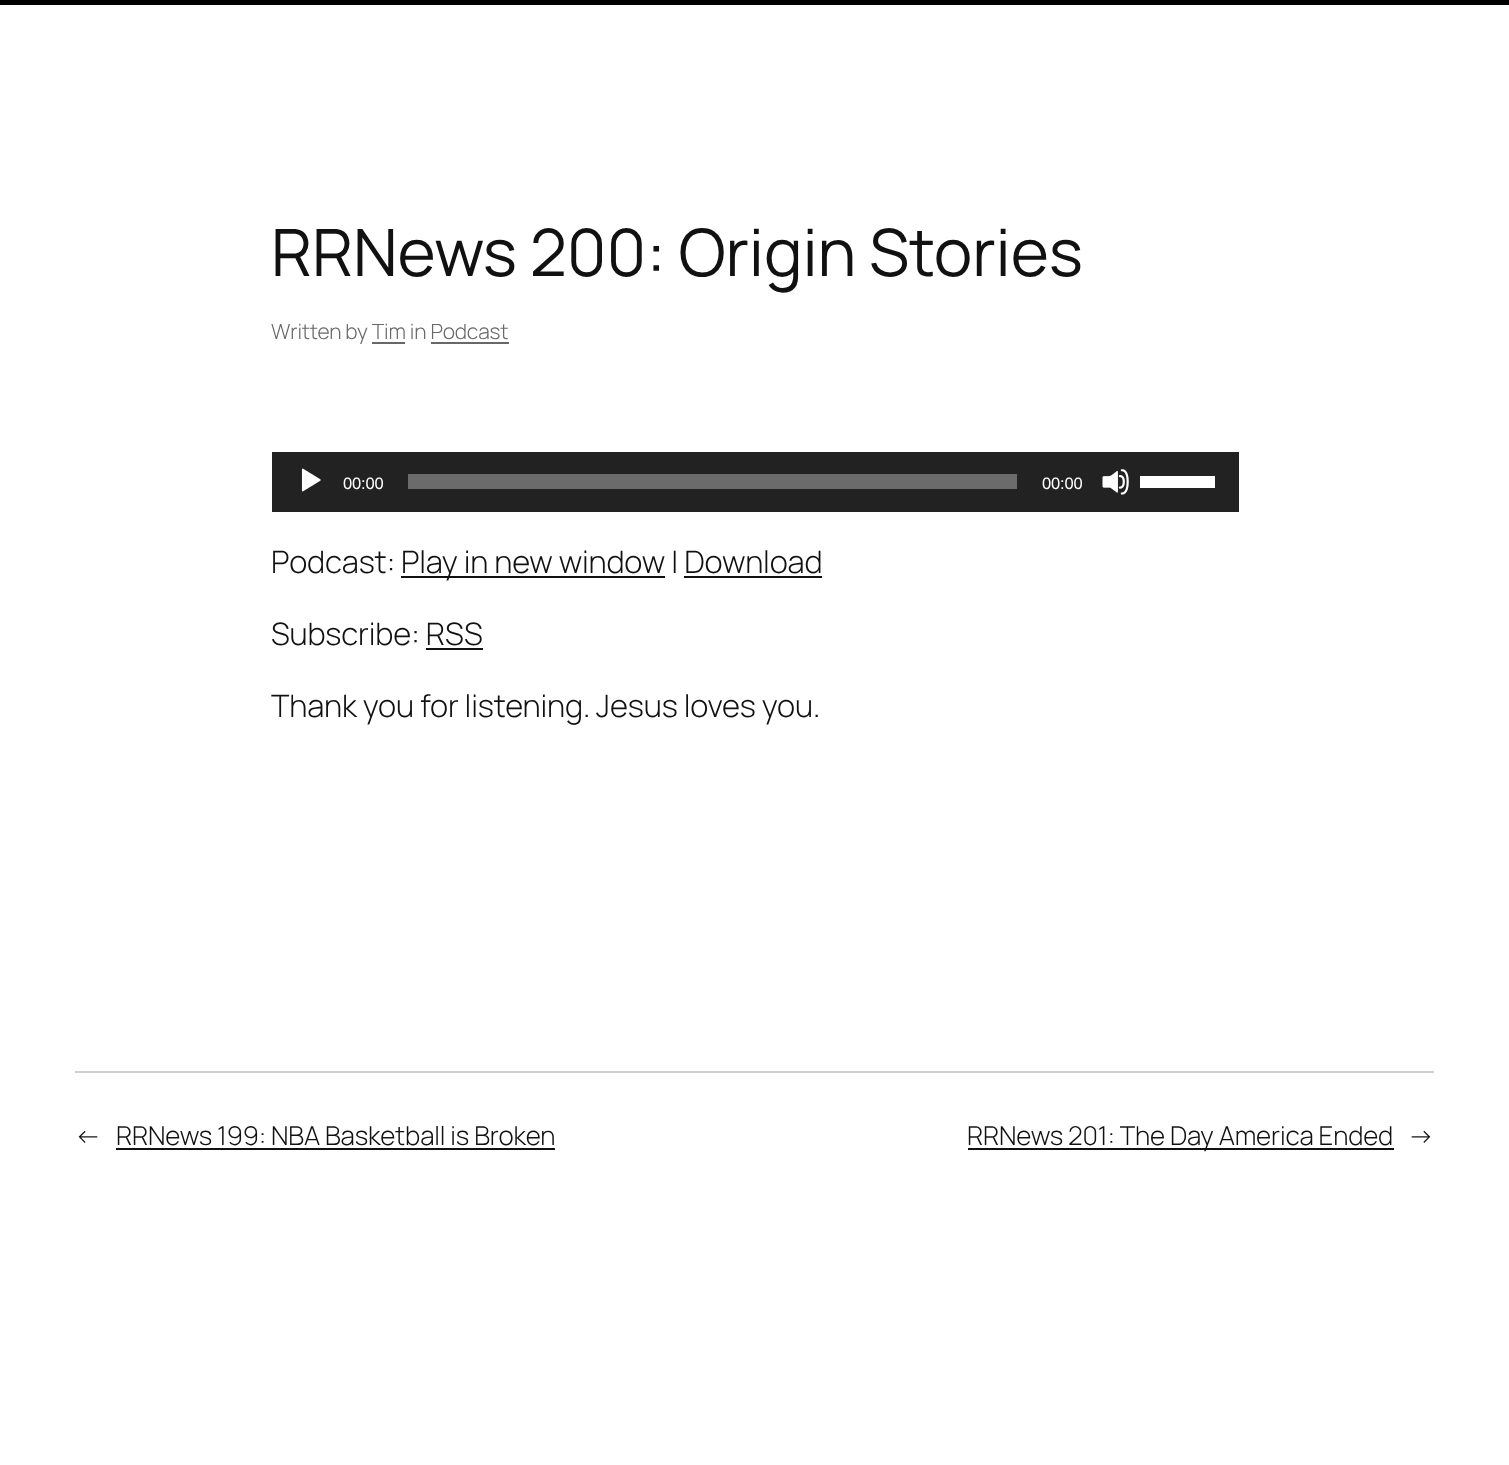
<svg xmlns="http://www.w3.org/2000/svg" width="1509" height="1465" viewBox="0 0 1509 1465">
  <rect width="100%" height="100%" fill="#ffffff"/>
  <rect x="0" y="0" width="1509" height="5" fill="#000000"/>
  <text x="271" y="276" font-family="Manrope" font-size="65.25" letter-spacing="-0.15" fill="#111111">RRNews 200: Origin Stories</text>
  <text x="271" y="339" font-family="Manrope" font-size="21" font-weight="300" letter-spacing="-0.15" fill="#686868">Written by Tim in Podcast</text>
  <rect x="372" y="342" width="33" height="2" fill="#686868"/>
  <rect x="431" y="342" width="78" height="2" fill="#686868"/>
  <rect x="272" y="452" width="967" height="60" fill="#222222"/>
  <image x="301" y="468" width="20" height="24" href="img1.png"/>
  <text x="343" y="489" font-family="Liberation Sans" font-size="16.5" letter-spacing="-0.15" fill="#ffffff">00:00</text>
  <rect x="408" y="474" width="609" height="15" fill="#6b6b6b"/>
  <text x="1042" y="489" font-family="Liberation Sans" font-size="16.5" letter-spacing="-0.15" fill="#ffffff">00:00</text>
  <image x="1102" y="469" width="27" height="26" href="img2.png"/>
  <rect x="1140" y="476" width="75" height="12" fill="#ffffff"/>
  <text x="271" y="573" font-family="Manrope" font-size="31" font-weight="300" letter-spacing="-0.15" fill="#111111">Podcast:</text>
  <rect x="401" y="576" width="264" height="2" fill="#111111"/>
  <text x="401" y="573" font-family="Manrope" font-size="31" font-weight="300" letter-spacing="-0.15" fill="#111111">Play in new window | Download</text>
  <rect x="684" y="576" width="138" height="2" fill="#111111"/>
  <text x="271" y="645" font-family="Manrope" font-size="31" font-weight="300" letter-spacing="-0.15" fill="#111111">Subscribe: RSS</text>
  <rect x="426" y="648" width="57" height="2" fill="#111111"/>
  <text x="271" y="717" font-family="Manrope" font-size="31" font-weight="300" letter-spacing="-0.15" fill="#111111">Thank you for listening. Jesus loves you.</text>
  <rect x="75" y="1071" width="1359" height="2" fill="#cfcfcf"/>
  <text x="75" y="1145" font-family="Manrope" font-size="26" font-weight="300" letter-spacing="-0.15" fill="#111111">←</text>
  <text x="116" y="1145" font-family="Manrope" font-size="26" font-weight="300" letter-spacing="-0.15" fill="#111111">RRNews 199: NBA Basketball is Broken</text>
  <rect x="116" y="1148" width="439" height="2" fill="#111111"/>
  <rect x="968" y="1148" width="426" height="2" fill="#111111"/>
  <text x="967" y="1145" font-family="Manrope" font-size="26" font-weight="300" letter-spacing="-0.15" fill="#111111">RRNews 201: The Day America Ended</text>
  <text x="1408" y="1145" font-family="Manrope" font-size="26" font-weight="300" letter-spacing="-0.15" fill="#111111">→</text>
</svg>
